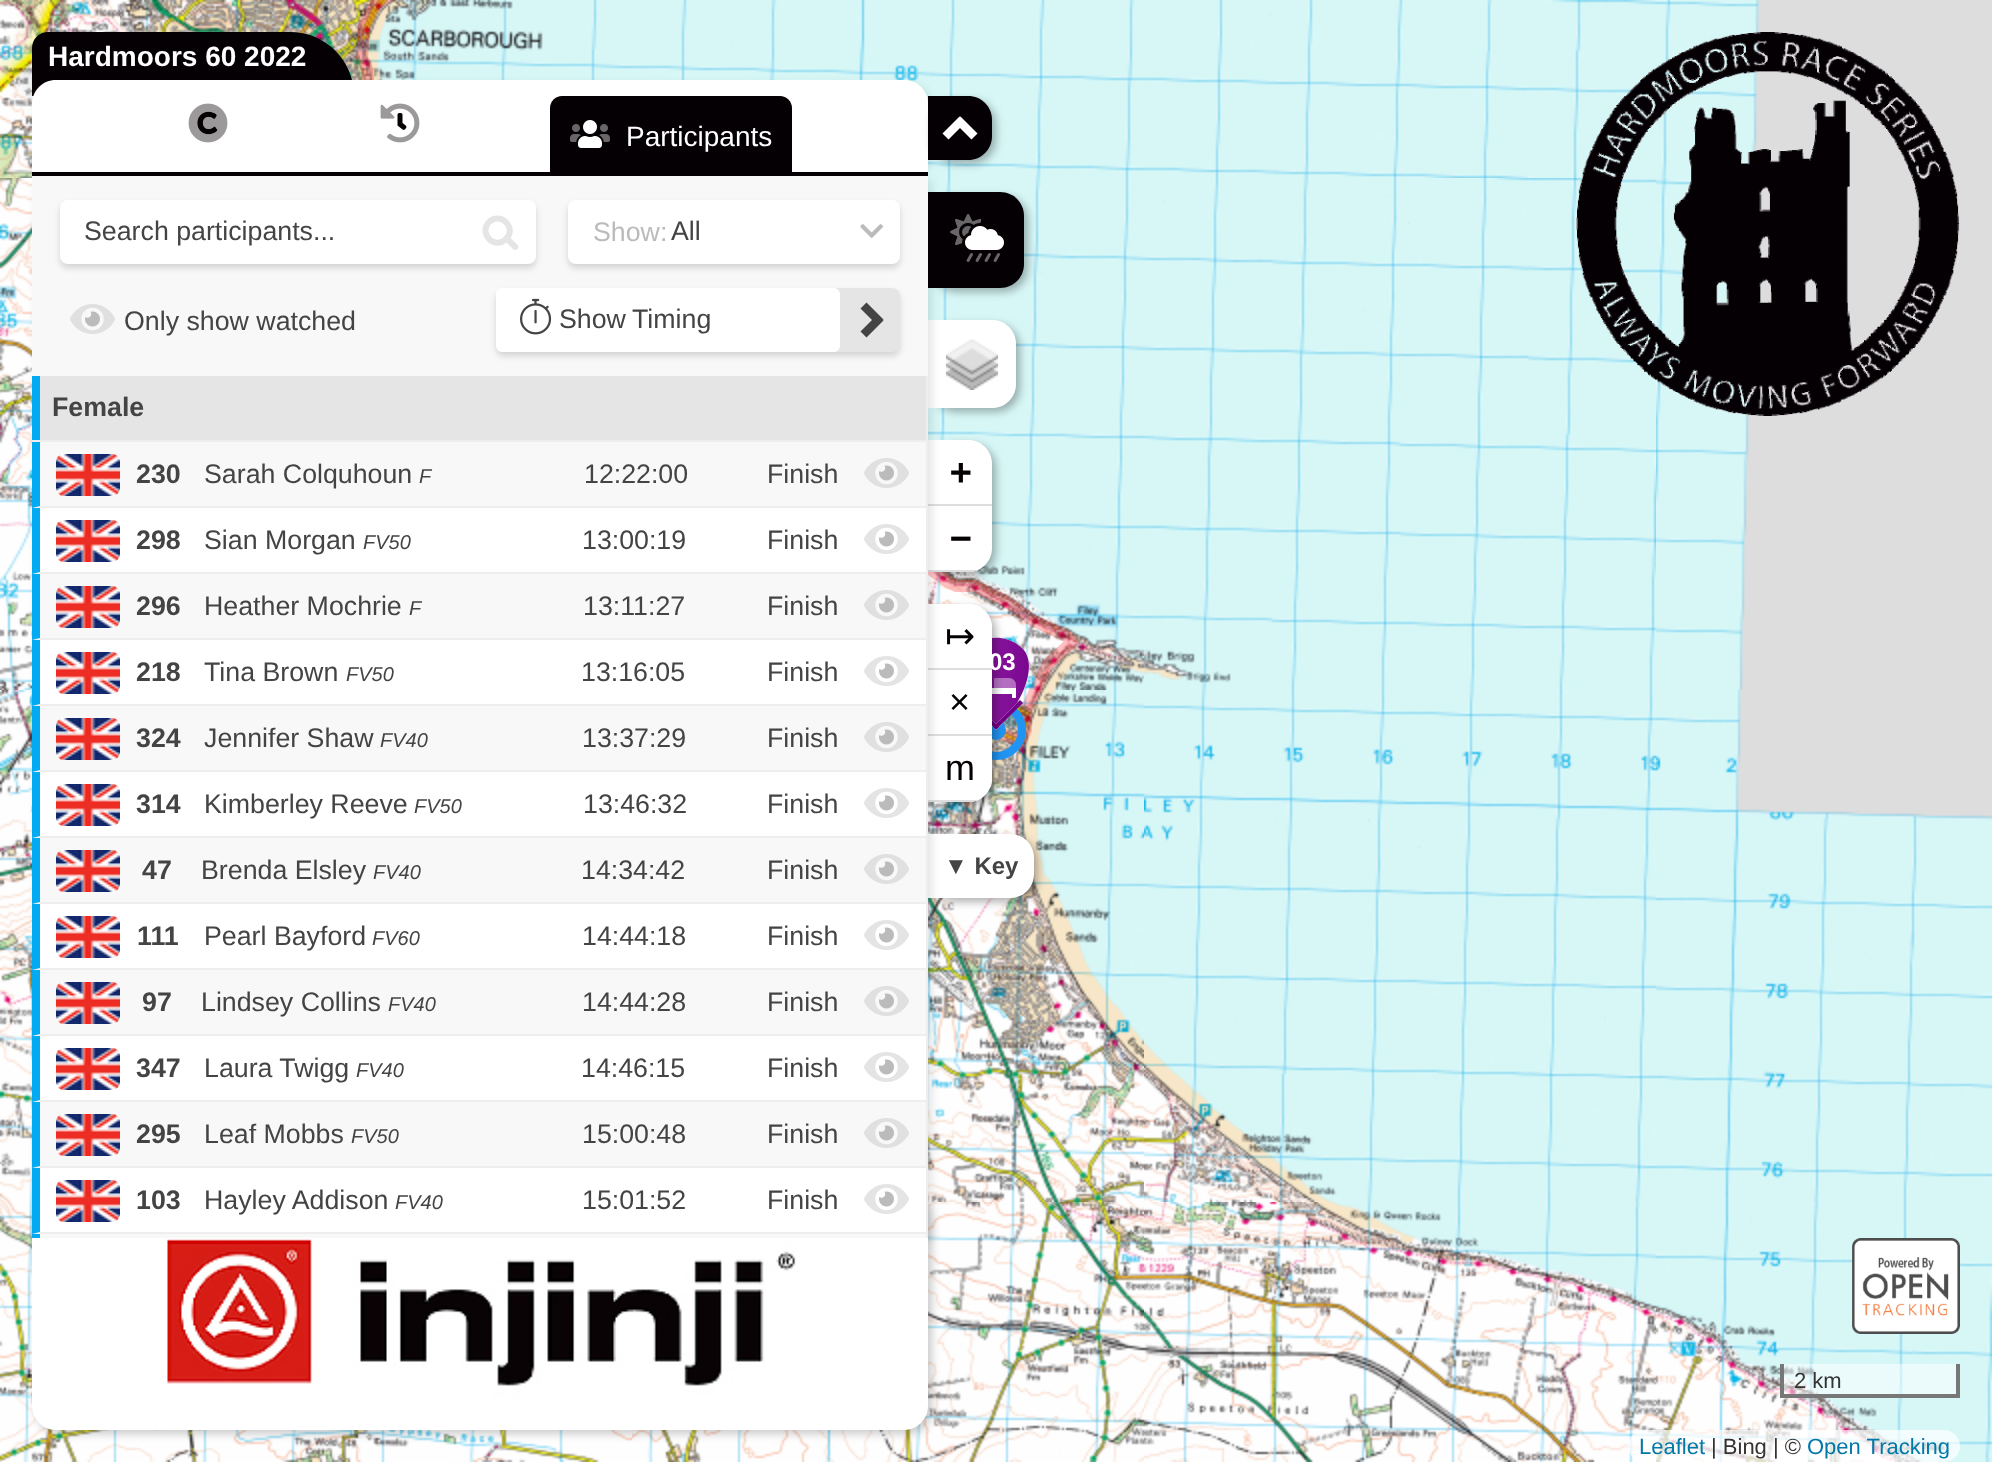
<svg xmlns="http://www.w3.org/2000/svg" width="1992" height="1462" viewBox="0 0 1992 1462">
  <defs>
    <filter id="blur1" x="-50%" y="-200%" width="200%" height="500%"><feGaussianBlur stdDeviation="10"/></filter>
    <filter id="blur2" x="-50%" y="-200%" width="200%" height="500%"><feGaussianBlur stdDeviation="4"/></filter>
    <clipPath id="clip1"><path d="M928 440H968C981.5 440 992 450.5 992 464V548C992 561.5 981.5 572 968 572H928Z"/></clipPath>
    <linearGradient id="g1" gradientUnits="userSpaceOnUse" x1="945" y1="673" x2="1047" y2="673"><stop offset="0" stop-color="#9b27b0"/><stop offset="1" stop-color="#730088"/></linearGradient>
    <clipPath id="clip2"><path d="M928 604H968C981.5 604 992 614.5 992 628V778C992 791.5 981.5 802 968 802H928Z"/></clipPath>
    <filter id="blur3" x="-50%" y="-200%" width="200%" height="500%"><feGaussianBlur stdDeviation="3"/></filter>
    <clipPath id="clip3"><rect x="32" y="376" width="896" height="862"/></clipPath>
  </defs>
  <rect width="100%" height="100%" fill="#dddddd"/>
  <image x="0" y="0" width="120" height="178" href="img20.png"/>
  <image x="120" y="0" width="512" height="80" href="img21.png"/>
  <image x="632" y="0" width="512" height="178" href="img22.png"/>
  <image x="928" y="178" width="216" height="512" href="img26.png"/>
  <image x="928" y="690" width="216" height="512" href="img30.png"/>
  <image x="356" y="0" width="722" height="748" href="img38.png"/>
  <rect x="22" y="42" width="322" height="64" rx="64" fill="#000000" fill-opacity="0.1" filter="url(#blur1)"/>
  <path d="M48 32H290C325.5 32 354 60.5 354 96H32V48C32 39 39 32 48 32Z" fill="#040003"/>
  <text x="48" y="66" font-family="Liberation Sans" font-size="28" font-weight="bold" fill="#ffffff">Hardmoors 60 2022</text>
  <image x="1144" y="0" width="512" height="178" href="img23.png"/>
  <image x="1656" y="0" width="103" height="178" href="img24.png"/>
  <image x="1144" y="178" width="512" height="512" href="img27.png"/>
  <image x="1656" y="178" width="93" height="512" href="img28.png"/>
  <image x="1576" y="32" width="384" height="384" href="img1.png"/>
  <rect x="932" y="196" width="96" height="96" rx="24" fill="#000000" fill-opacity="0.3" filter="url(#blur2)"/>
  <path d="M928 192H1000C1013.5 192 1024 202.5 1024 216V264C1024 277.5 1013.5 288 1000 288H928Z" fill="#040003"/>
  <image x="0" y="178" width="32" height="512" href="img25.png"/>
  <rect x="36" y="84" width="896" height="96" rx="24" fill="#000000" fill-opacity="0.1" filter="url(#blur2)"/>
  <path d="M56 80H904C917.5 80 928 90.5 928 104V176H32V104C32 90.5 42.5 80 56 80Z" fill="#ffffff"/>
  <rect x="32" y="172" width="896" height="4" fill="#040003"/>
  <image x="197" y="111" width="21" height="24" href="img3.png"/>
  <image x="188" y="103" width="40" height="40" href="img2.png"/>
  <image x="397" y="113" width="10" height="17" href="img5.png"/>
  <image x="380" y="103" width="40" height="40" href="img4.png"/>
  <path d="M562 96H780C786.5 96 792 101.5 792 108V176H550V108C550 101.5 555.5 96 562 96Z" fill="#040003"/>
  <image x="578" y="120" width="24" height="28" href="img6.png"/>
  <image x="570" y="124" width="40" height="18" href="img7.png"/>
  <text x="626" y="146" font-family="Liberation Sans" font-size="28" fill="#ffffff">Participants</text>
  <rect x="932" y="100" width="64" height="64" rx="24" fill="#000000" fill-opacity="0.3" filter="url(#blur2)"/>
  <path d="M928 96H968C981.5 96 992 106.5 992 120V136C992 149.5 981.5 160 968 160H928Z" fill="#040003"/>
  <path d="M942.5 133.5L959.5 116.5L965.5 122.5L948.5 139.5Z" fill="#ffffff"/>
  <path d="M960.5 116.5L977.5 133.5L971.5 139.5L954.5 122.5Z" fill="#ffffff"/>
  <rect x="932" y="324" width="88" height="88" rx="24" fill="#000000" fill-opacity="0.3" filter="url(#blur2)"/>
  <path d="M928 320H992C1005.5 320 1016 330.5 1016 344V384C1016 397.5 1005.5 408 992 408H928Z" fill="#ffffff"/>
  <rect x="932" y="444" width="64" height="132" rx="24" fill="#000000" fill-opacity="0.3" filter="url(#blur2)"/>
  <path d="M928 440H968C981.5 440 992 450.5 992 464V506H928Z" fill="#ffffff"/>
  <rect x="928" y="504" width="64" height="2" fill="#dddddd"/>
  <path d="M928 506H992V548C992 561.5 981.5 572 968 572H928Z" fill="#ffffff"/>
  <g clip-path="url(#clip1)">
    <rect x="928" y="570" width="50" height="2" fill="#dddddd"/>
  </g>
  <circle cx="996" cy="730" r="26" fill="none" stroke="#2094f3" stroke-width="8"/>
  <circle cx="996" cy="730" r="10" fill="#2094f3"/>
  <path d="M1023 649C1038 664 1026 700 996 730C966 700 954 664 969 649C984 634 1008 634 1023 649Z" fill="#ffffff"/>
  <path d="M1023 649C1033 660 1030 681 1017 703L996 724L975 703C962 681 959 660 969 649C984 634 1008 634 1023 649Z" fill="url(#g1)"/>
  <path d="M1020 700L1023 703L996 729.5L993 727Z" fill="#730088"/>
  <path d="M972 700L999 727L996 729.5L969 703Z" fill="#730088"/>
  <image x="994" y="678" width="22" height="10" href="img39.png"/>
  <image x="992" y="688" width="24" height="10" href="img40.png"/>
  <rect x="932" y="608" width="64" height="198" rx="24" fill="#000000" fill-opacity="0.3" filter="url(#blur2)"/>
  <path d="M928 604H968C981.5 604 992 614.5 992 628V778C992 791.5 981.5 802 968 802H928Z" fill="#ffffff"/>
  <path d="M928 604H968C981.5 604 992 614.5 992 628V670H928Z" fill="#ffffff"/>
  <text x="989" y="670" font-family="Liberation Sans" font-size="24" font-weight="bold" fill="#ffffff">03</text>
  <rect x="928" y="668" width="64" height="2" fill="#dddddd"/>
  <rect x="928" y="734" width="64" height="2" fill="#dddddd"/>
  <path d="M928 736H992V778C992 791.5 981.5 802 968 802H928Z" fill="#ffffff"/>
  <g clip-path="url(#clip2)">
    <rect x="928" y="800" width="50" height="2" fill="#dddddd"/>
  </g>
  <rect x="932" y="838" width="106" height="64" rx="24" fill="#000000" fill-opacity="0.3" filter="url(#blur2)"/>
  <path d="M928 834H1010C1023.5 834 1034 844.5 1034 858V874C1034 887.5 1023.5 898 1010 898H928Z" fill="#ffffff"/>
  <image x="0" y="690" width="32" height="512" href="img29.png"/>
  <image x="0" y="1202" width="120" height="260" href="img33.png"/>
  <image x="632" y="1202" width="512" height="260" href="img35.png"/>
  <rect x="36" y="180" width="896" height="1062" fill="#000000" fill-opacity="0.1" filter="url(#blur2)"/>
  <rect x="32" y="176" width="896" height="992" fill="#f8f8f8"/>
  <rect x="60" y="204" width="476" height="64" rx="8" fill="#000000" fill-opacity="0.15" filter="url(#blur3)"/>
  <rect x="60" y="200" width="476" height="64" rx="8" fill="#ffffff"/>
  <text x="84" y="240" font-family="Liberation Sans" font-size="26.75" fill="#444444">Search participants...</text>
  <path d="M489 222C500.5 211 517.5 228 506 239C495 250.5 478 233.5 489 222Z" fill="none" stroke="#e5e5e5" stroke-width="6"/>
  <path d="M506 238C509 235 512 239.5 514 241.5C515.5 243 520.5 246.5 517.5 249C514.5 252 511.5 247.5 509.5 245.5C508 244 503.5 240.5 506 238Z" fill="#e5e5e5"/>
  <rect x="568" y="204" width="332" height="64" rx="8" fill="#000000" fill-opacity="0.15" filter="url(#blur3)"/>
  <rect x="568" y="200" width="332" height="64" rx="8" fill="#ffffff"/>
  <text x="593" y="241" font-family="Liberation Sans" font-size="26.75" fill="#bbbbbb">Show:</text>
  <text x="671" y="240" font-family="Liberation Sans" font-size="26.75" fill="#444444">All</text>
  <image x="860" y="224" width="23" height="14" href="img8.png"/>
  <image x="85" y="311" width="15" height="16" href="img10.png"/>
  <image x="70" y="304" width="45" height="30" href="img9.png"/>
  <text x="124" y="330" font-family="Liberation Sans" font-size="26.75" fill="#444444">Only show watched</text>
  <rect x="496" y="292" width="404" height="64" rx="8" fill="#000000" fill-opacity="0.15" filter="url(#blur3)"/>
  <rect x="496" y="288" width="404" height="64" rx="8" fill="#e5e5e5"/>
  <rect x="496" y="288" width="344" height="64" rx="6" fill="#ffffff"/>
  <image x="520" y="298" width="32" height="37" href="img11.png"/>
  <text x="559" y="328" font-family="Liberation Sans" font-size="26.75" fill="#444444">Show</text>
  <text x="632" y="328" font-family="Liberation Sans" font-size="26.75" fill="#444444">Timing</text>
  <path d="M866.5 302.5L883.5 319.5L877.5 325.5L860.5 308.5Z" fill="#444444"/>
  <path d="M860.5 331.5L877.5 314.5L883.5 320.5L866.5 337.5Z" fill="#444444"/>
  <rect x="40" y="376" width="886" height="64" fill="#e5e5e5"/>
  <image x="120" y="1430" width="512" height="32" href="img34.png"/>
  <rect x="36" y="1194" width="896" height="240" rx="24" fill="#000000" fill-opacity="0.2" filter="url(#blur2)"/>
  <rect x="926" y="376" width="2" height="858" fill="#eeeeee"/>
  <rect x="32" y="440" width="896" height="2" fill="#eeeeee"/>
  <rect x="32" y="376" width="8" height="64" fill="#02aaf2"/>
  <text x="52" y="416" font-family="Liberation Sans" font-size="26.75" font-weight="bold" fill="#444444">Female</text>
  <path d="M928 508H32L40 506H926Z" fill="#eeeeee"/>
  <path d="M32 508V442H40V506Z" fill="#02aaf2"/>
  <image x="56" y="454" width="64" height="42" href="img12.png"/>
  <text x="136" y="483" font-family="Liberation Sans" font-size="26.75" font-weight="bold" fill="#444444">230</text>
  <text x="204" y="483" font-family="Liberation Sans" font-size="26.75" fill="#444444">Sarah Colquhoun</text>
  <text x="419" y="483" font-family="Liberation Sans" font-size="20" font-style="italic" fill="#444444">F</text>
  <text x="584" y="483" font-family="Liberation Sans" font-size="26.75" fill="#444444">12:22:00</text>
  <text x="767" y="483" font-family="Liberation Sans" font-size="26.75" fill="#444444">Finish</text>
  <image x="879" y="465" width="15" height="16" href="img10.png"/>
  <image x="864" y="458" width="45" height="30" href="img9.png"/>
  <rect x="32" y="508" width="894" height="66" fill="#ffffff"/>
  <path d="M928 574H32L40 572H926Z" fill="#eeeeee"/>
  <path d="M32 574V508H40V572Z" fill="#02aaf2"/>
  <image x="56" y="520" width="64" height="42" href="img13.png"/>
  <text x="136" y="549" font-family="Liberation Sans" font-size="26.75" font-weight="bold" fill="#444444">298</text>
  <text x="204" y="549" font-family="Liberation Sans" font-size="26.75" fill="#444444">Sian Morgan</text>
  <text x="363" y="549" font-family="Liberation Sans" font-size="20" font-style="italic" fill="#444444">FV50</text>
  <text x="582" y="549" font-family="Liberation Sans" font-size="26.75" fill="#444444">13:00:19</text>
  <text x="767" y="549" font-family="Liberation Sans" font-size="26.75" fill="#444444">Finish</text>
  <image x="879" y="531" width="15" height="16" href="img15.png"/>
  <image x="864" y="524" width="45" height="30" href="img14.png"/>
  <path d="M928 640H32L40 638H926Z" fill="#eeeeee"/>
  <path d="M32 640V574H40V638Z" fill="#02aaf2"/>
  <image x="56" y="586" width="64" height="42" href="img12.png"/>
  <text x="136" y="615" font-family="Liberation Sans" font-size="26.75" font-weight="bold" fill="#444444">296</text>
  <text x="204" y="615" font-family="Liberation Sans" font-size="26.75" fill="#444444">Heather Mochrie</text>
  <text x="409" y="615" font-family="Liberation Sans" font-size="20" font-style="italic" fill="#444444">F</text>
  <text x="583" y="615" font-family="Liberation Sans" font-size="26.75" fill="#444444">13:11:27</text>
  <text x="767" y="615" font-family="Liberation Sans" font-size="26.75" fill="#444444">Finish</text>
  <image x="879" y="597" width="15" height="16" href="img10.png"/>
  <image x="864" y="590" width="45" height="30" href="img9.png"/>
  <rect x="32" y="640" width="894" height="66" fill="#ffffff"/>
  <path d="M928 706H32L40 704H926Z" fill="#eeeeee"/>
  <path d="M32 706V640H40V704Z" fill="#02aaf2"/>
  <image x="56" y="652" width="64" height="42" href="img13.png"/>
  <text x="136" y="681" font-family="Liberation Sans" font-size="26.75" font-weight="bold" fill="#444444">218</text>
  <text x="204" y="681" font-family="Liberation Sans" font-size="26.75" fill="#444444">Tina Brown</text>
  <text x="346" y="681" font-family="Liberation Sans" font-size="20" font-style="italic" fill="#444444">FV50</text>
  <text x="581" y="681" font-family="Liberation Sans" font-size="26.75" fill="#444444">13:16:05</text>
  <text x="767" y="681" font-family="Liberation Sans" font-size="26.75" fill="#444444">Finish</text>
  <image x="879" y="663" width="15" height="16" href="img15.png"/>
  <image x="864" y="656" width="45" height="30" href="img14.png"/>
  <path d="M928 772H32L40 770H926Z" fill="#eeeeee"/>
  <path d="M32 772V706H40V770Z" fill="#02aaf2"/>
  <image x="56" y="718" width="64" height="42" href="img12.png"/>
  <text x="136" y="747" font-family="Liberation Sans" font-size="26.75" font-weight="bold" fill="#444444">324</text>
  <text x="204" y="747" font-family="Liberation Sans" font-size="26.75" fill="#444444">Jennifer Shaw</text>
  <text x="380" y="747" font-family="Liberation Sans" font-size="20" font-style="italic" fill="#444444">FV40</text>
  <text x="582" y="747" font-family="Liberation Sans" font-size="26.75" fill="#444444">13:37:29</text>
  <text x="767" y="747" font-family="Liberation Sans" font-size="26.75" fill="#444444">Finish</text>
  <image x="879" y="729" width="15" height="16" href="img10.png"/>
  <image x="864" y="722" width="45" height="30" href="img9.png"/>
  <rect x="32" y="772" width="894" height="66" fill="#ffffff"/>
  <path d="M928 838H32L40 836H926Z" fill="#eeeeee"/>
  <path d="M32 838V772H40V836Z" fill="#02aaf2"/>
  <image x="56" y="784" width="64" height="42" href="img13.png"/>
  <text x="136" y="813" font-family="Liberation Sans" font-size="26.75" font-weight="bold" fill="#444444">314</text>
  <text x="204" y="813" font-family="Liberation Sans" font-size="26.75" fill="#444444">Kimberley Reeve</text>
  <text x="414" y="813" font-family="Liberation Sans" font-size="20" font-style="italic" fill="#444444">FV50</text>
  <text x="583" y="813" font-family="Liberation Sans" font-size="26.75" fill="#444444">13:46:32</text>
  <text x="767" y="813" font-family="Liberation Sans" font-size="26.75" fill="#444444">Finish</text>
  <image x="879" y="795" width="15" height="16" href="img15.png"/>
  <image x="864" y="788" width="45" height="30" href="img14.png"/>
  <path d="M928 904H32L40 902H926Z" fill="#eeeeee"/>
  <path d="M32 904V838H40V902Z" fill="#02aaf2"/>
  <image x="56" y="850" width="64" height="42" href="img12.png"/>
  <text x="142" y="879" font-family="Liberation Sans" font-size="26.75" font-weight="bold" fill="#444444">47</text>
  <text x="201" y="879" font-family="Liberation Sans" font-size="26.75" fill="#444444">Brenda Elsley</text>
  <text x="373" y="879" font-family="Liberation Sans" font-size="20" font-style="italic" fill="#444444">FV40</text>
  <text x="581" y="879" font-family="Liberation Sans" font-size="26.75" fill="#444444">14:34:42</text>
  <text x="767" y="879" font-family="Liberation Sans" font-size="26.75" fill="#444444">Finish</text>
  <image x="879" y="861" width="15" height="16" href="img10.png"/>
  <image x="864" y="854" width="45" height="30" href="img9.png"/>
  <rect x="32" y="904" width="894" height="66" fill="#ffffff"/>
  <path d="M928 970H32L40 968H926Z" fill="#eeeeee"/>
  <path d="M32 970V904H40V968Z" fill="#02aaf2"/>
  <image x="56" y="916" width="64" height="42" href="img13.png"/>
  <text x="137" y="945" font-family="Liberation Sans" font-size="26.75" font-weight="bold" fill="#444444">111</text>
  <text x="204" y="945" font-family="Liberation Sans" font-size="26.75" fill="#444444">Pearl Bayford</text>
  <text x="372" y="945" font-family="Liberation Sans" font-size="20" font-style="italic" fill="#444444">FV60</text>
  <text x="582" y="945" font-family="Liberation Sans" font-size="26.75" fill="#444444">14:44:18</text>
  <text x="767" y="945" font-family="Liberation Sans" font-size="26.75" fill="#444444">Finish</text>
  <image x="879" y="927" width="15" height="16" href="img15.png"/>
  <image x="864" y="920" width="45" height="30" href="img14.png"/>
  <path d="M928 1036H32L40 1034H926Z" fill="#eeeeee"/>
  <path d="M32 1036V970H40V1034Z" fill="#02aaf2"/>
  <image x="56" y="982" width="64" height="42" href="img12.png"/>
  <text x="142" y="1011" font-family="Liberation Sans" font-size="26.75" font-weight="bold" fill="#444444">97</text>
  <text x="201" y="1011" font-family="Liberation Sans" font-size="26.75" fill="#444444">Lindsey Collins</text>
  <text x="388" y="1011" font-family="Liberation Sans" font-size="20" font-style="italic" fill="#444444">FV40</text>
  <text x="582" y="1011" font-family="Liberation Sans" font-size="26.75" fill="#444444">14:44:28</text>
  <text x="767" y="1011" font-family="Liberation Sans" font-size="26.75" fill="#444444">Finish</text>
  <image x="879" y="993" width="15" height="16" href="img10.png"/>
  <image x="864" y="986" width="45" height="30" href="img9.png"/>
  <rect x="32" y="1036" width="894" height="66" fill="#ffffff"/>
  <path d="M928 1102H32L40 1100H926Z" fill="#eeeeee"/>
  <path d="M32 1102V1036H40V1100Z" fill="#02aaf2"/>
  <image x="56" y="1048" width="64" height="42" href="img13.png"/>
  <text x="136" y="1077" font-family="Liberation Sans" font-size="26.75" font-weight="bold" fill="#444444">347</text>
  <text x="204" y="1077" font-family="Liberation Sans" font-size="26.75" fill="#444444">Laura Twigg</text>
  <text x="356" y="1077" font-family="Liberation Sans" font-size="20" font-style="italic" fill="#444444">FV40</text>
  <text x="581" y="1077" font-family="Liberation Sans" font-size="26.75" fill="#444444">14:46:15</text>
  <text x="767" y="1077" font-family="Liberation Sans" font-size="26.75" fill="#444444">Finish</text>
  <image x="879" y="1059" width="15" height="16" href="img15.png"/>
  <image x="864" y="1052" width="45" height="30" href="img14.png"/>
  <path d="M928 1168H32L40 1166H926Z" fill="#eeeeee"/>
  <path d="M32 1168V1102H40V1166Z" fill="#02aaf2"/>
  <image x="56" y="1114" width="64" height="42" href="img12.png"/>
  <text x="136" y="1143" font-family="Liberation Sans" font-size="26.75" font-weight="bold" fill="#444444">295</text>
  <text x="204" y="1143" font-family="Liberation Sans" font-size="26.75" fill="#444444">Leaf Mobbs</text>
  <text x="351" y="1143" font-family="Liberation Sans" font-size="20" font-style="italic" fill="#444444">FV50</text>
  <text x="582" y="1143" font-family="Liberation Sans" font-size="26.75" fill="#444444">15:00:48</text>
  <text x="767" y="1143" font-family="Liberation Sans" font-size="26.75" fill="#444444">Finish</text>
  <image x="879" y="1125" width="15" height="16" href="img10.png"/>
  <image x="864" y="1118" width="45" height="30" href="img9.png"/>
  <rect x="32" y="1168" width="894" height="66" fill="#ffffff"/>
  <path d="M928 1234H32L40 1232H926Z" fill="#eeeeee"/>
  <path d="M32 1234V1168H40V1232Z" fill="#02aaf2"/>
  <image x="56" y="1180" width="64" height="42" href="img13.png"/>
  <text x="136" y="1209" font-family="Liberation Sans" font-size="26.75" font-weight="bold" fill="#444444">103</text>
  <text x="204" y="1209" font-family="Liberation Sans" font-size="26.75" fill="#444444">Hayley Addison</text>
  <text x="395" y="1209" font-family="Liberation Sans" font-size="20" font-style="italic" fill="#444444">FV40</text>
  <text x="582" y="1209" font-family="Liberation Sans" font-size="26.75" fill="#444444">15:01:52</text>
  <text x="767" y="1209" font-family="Liberation Sans" font-size="26.75" fill="#444444">Finish</text>
  <image x="879" y="1191" width="15" height="16" href="img15.png"/>
  <image x="864" y="1184" width="45" height="30" href="img14.png"/>
  <rect x="32" y="1234" width="896" height="4" fill="#f8f8f8"/>
  <rect x="926" y="1234" width="2" height="4" fill="#eeeeee"/>
  <g clip-path="url(#clip3)">
    <path d="M32 1300V1234H40V1298Z" fill="#02aaf2"/>
  </g>
  <image x="32" y="1238" width="896" height="192" href="img16.png"/>
  <image x="965" y="226" width="39" height="24" href="img18.png"/>
  <image x="950" y="214" width="50" height="48" href="img17.png"/>
  <image x="946" y="339" width="52" height="51" href="img19.png"/>
  <text x="950" y="484" font-family="DejaVu Sans Mono" font-size="36" font-weight="bold" fill="#040003">+</text>
  <text x="950" y="550" font-family="DejaVu Sans Mono" font-size="36" font-weight="bold" fill="#040003">−</text>
  <text x="945" y="648" font-family="DejaVu Sans" font-size="36" fill="#040003">↦</text>
  <text x="949" y="714" font-family="Liberation Sans" font-size="36" fill="#040003">×</text>
  <text x="945" y="780" font-family="Liberation Sans" font-size="36" fill="#040003">m</text>
  <text x="944" y="874" font-family="Liberation Sans" font-size="24" font-weight="bold" fill="#444444">▼ Key</text>
  <image x="1656" y="1202" width="336" height="260" href="img37.png"/>
  <rect x="1784" y="1364" width="172" height="30" fill="#ffffff" fill-opacity="0.5"/>
  <rect x="1956" y="1364" width="4" height="34" fill="#777777"/>
  <rect x="1780" y="1394" width="180" height="4" fill="#777777"/>
  <rect x="1780" y="1364" width="4" height="34" fill="#777777"/>
  <text x="1794" y="1388" font-family="Liberation Sans" font-size="22" fill="#333333">2 km</text>
  <image x="1144" y="1202" width="512" height="260" href="img36.png"/>
  <rect x="1628" y="1430" width="332" height="32" rx="16" fill="#ffffff" fill-opacity="0.7"/>
  <text x="1639" y="1454" font-family="Liberation Sans" font-size="22" fill="#0078a8">Leaflet</text>
  <text x="1711" y="1454" font-family="Liberation Sans" font-size="22" fill="#333333">| Bing | ©</text>
  <text x="1807" y="1454" font-family="Liberation Sans" font-size="22" fill="#0078a8">Open Tracking</text>
  <image x="1144" y="690" width="512" height="512" href="img31.png"/>
  <image x="1656" y="690" width="336" height="512" href="img32.png"/>
  <image x="1852" y="1238" width="108" height="96" href="img41.png"/>
</svg>
